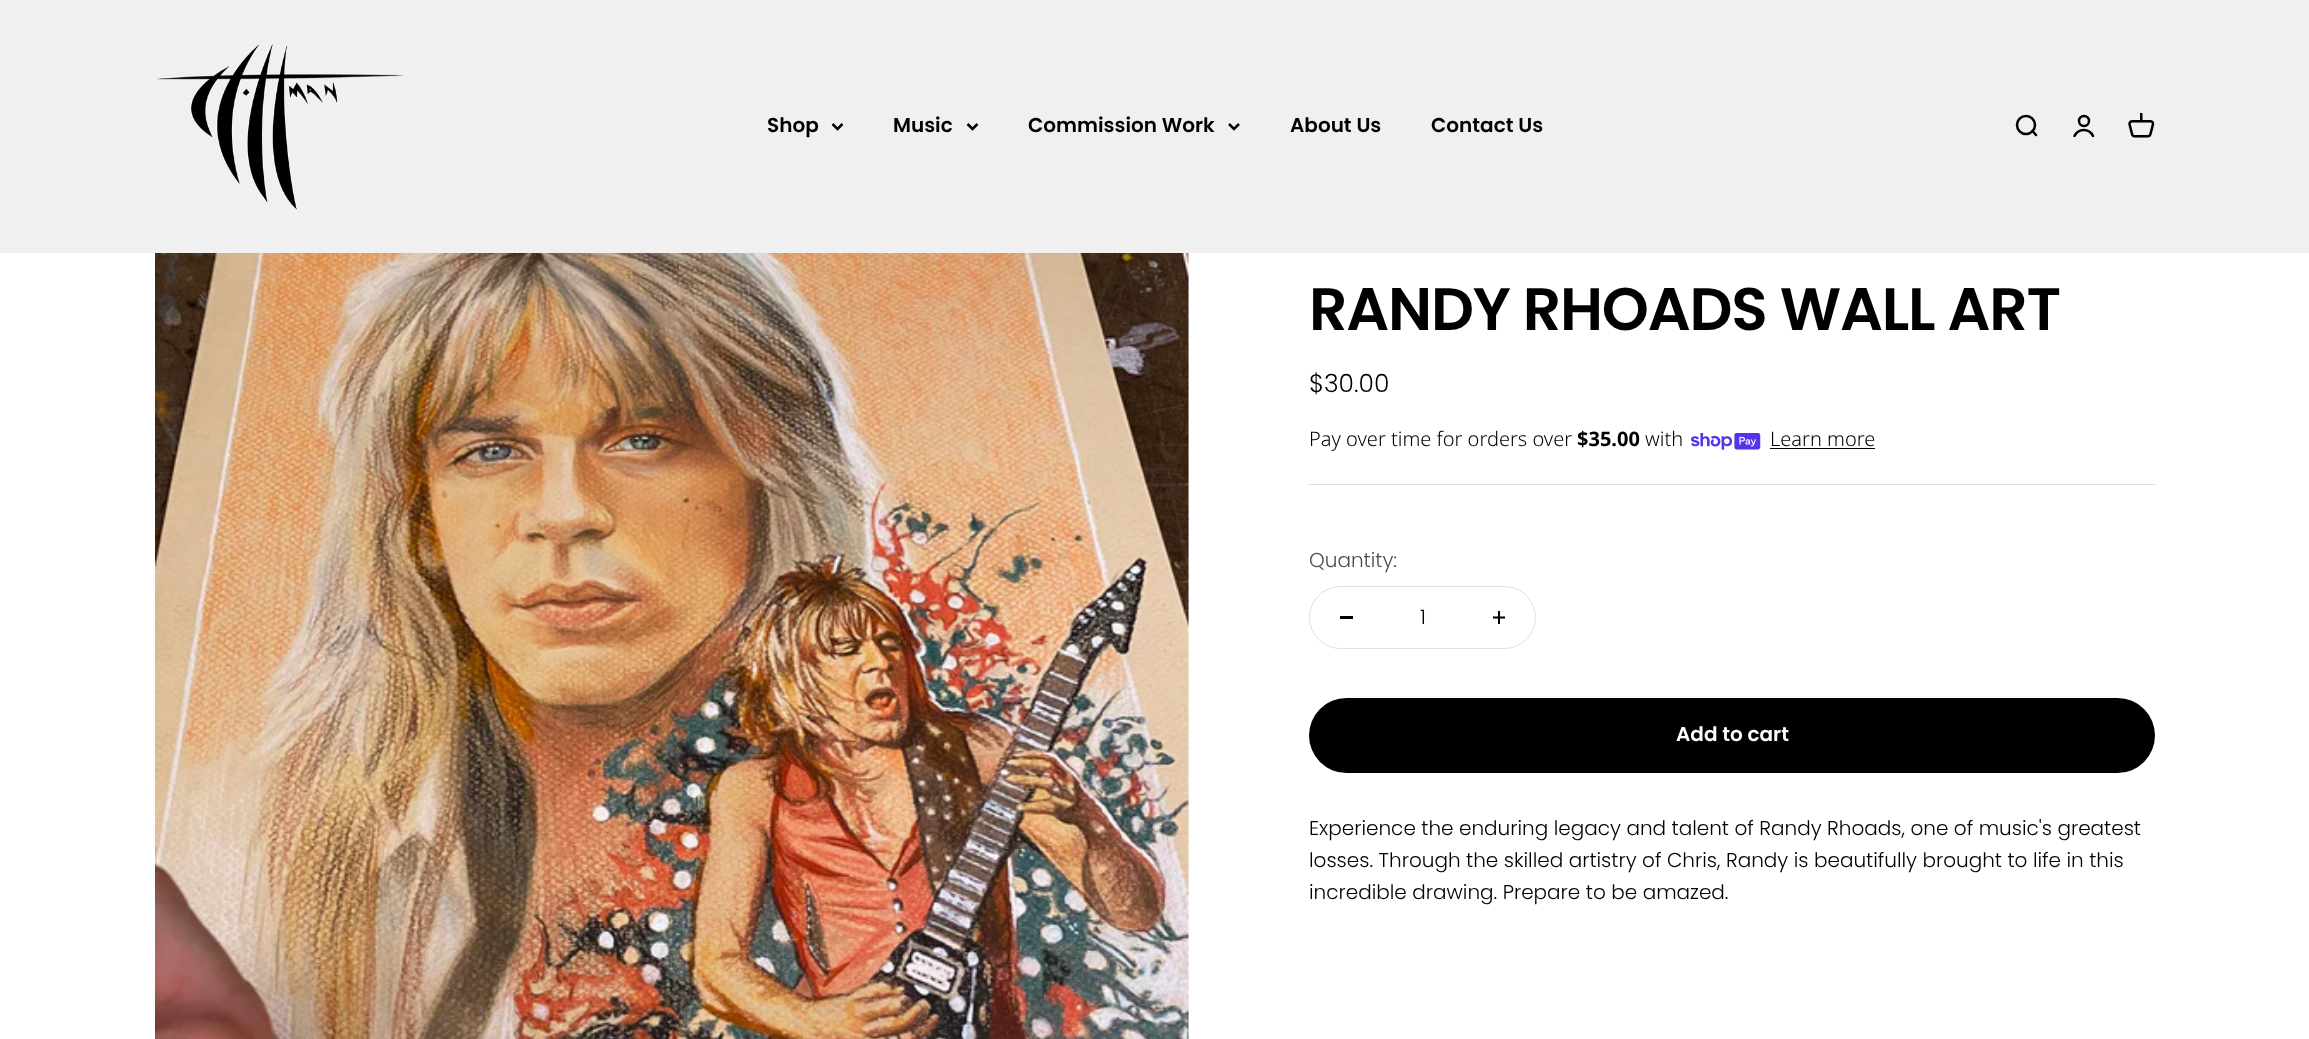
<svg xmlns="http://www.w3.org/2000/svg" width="2309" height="1039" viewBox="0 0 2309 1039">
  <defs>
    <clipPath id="clip1"><rect x="1493" y="611" width="12" height="13"/></clipPath>
  </defs>
  <rect width="100%" height="100%" fill="#ffffff"/>
  <rect x="0" y="0" width="2309" height="253" fill="#f0f0f0"/>
  <image x="155" y="43" width="250" height="167" href="img1.png"/>
  <text x="767" y="132" font-family="Poppins" font-size="20" font-weight="600" fill="#000000">Shop</text>
  <path d="M832.5 124L837.5 129L842.5 124" fill="none" stroke="#000000" stroke-width="2.5"/>
  <text x="893" y="132" font-family="Poppins" font-size="20" font-weight="600" fill="#000000">Music</text>
  <path d="M967.5 124L972.5 129L977.5 124" fill="none" stroke="#000000" stroke-width="2.5"/>
  <text x="1028" y="132" font-family="Poppins" font-size="20" font-weight="600" fill="#000000">Commission Work</text>
  <path d="M1229 124L1234 129L1239 124" fill="none" stroke="#000000" stroke-width="2.5"/>
  <text x="1290" y="132" font-family="Poppins" font-size="20" font-weight="600" fill="#000000">About Us</text>
  <text x="1431" y="132" font-family="Poppins" font-size="20" font-weight="600" fill="#000000">Contact Us</text>
  <circle cx="2026" cy="125" r="9" fill="none" stroke="#000000" stroke-width="2.5"/>
  <path d="M2032.5 131L2036 135" fill="none" stroke="#000000" stroke-width="2.5" stroke-linecap="round" stroke-linejoin="round"/>
  <circle cx="2084" cy="121" r="5" fill="none" stroke="#000000" stroke-width="2.5"/>
  <path d="M2074.5 136C2078.5 128 2089 128 2093 136" fill="none" stroke="#000000" stroke-width="2.5" stroke-linecap="round"/>
  <image x="2128" y="113" width="27" height="25" href="img2.png"/>
  <image x="155" y="253" width="1034" height="786" href="img3.png"/>
  <text x="1309" y="330" font-family="Poppins" font-size="60" font-weight="600" letter-spacing="-1.2" fill="#000000">RANDY RHOADS WALL ART</text>
  <text x="1309" y="392" font-family="Poppins" font-size="25" font-weight="300" fill="#000000">$30.00</text>
  <text x="1309" y="446" font-family="Noto Sans" font-size="20" font-weight="300" fill="#000000">Pay over time for orders over</text>
  <text x="1577" y="446" font-family="Noto Sans" font-size="20" font-weight="bold" fill="#000000">$35.00</text>
  <text x="1645" y="446" font-family="Noto Sans" font-size="20" font-weight="300" fill="#000000">with</text>
  <image x="1691" y="433" width="70" height="17" href="img4.png"/>
  <text x="1770" y="446" font-family="Noto Sans" font-size="20" font-weight="300" fill="#000000">Learn more</text>
  <rect x="1770" y="448" width="105" height="1" fill="#000000"/>
  <rect x="1309" y="484" width="846" height="1" fill="#e0e0e0"/>
  <text x="1309" y="567" font-family="Poppins" font-size="20" font-weight="300" fill="#4d4d4d">Quantity:</text>
  <rect x="1309.5" y="586.5" width="226" height="62" rx="31" fill="none" stroke="#e0e0e0"/>
  <rect x="1340" y="616" width="13" height="3" fill="#000000"/>
  <text x="1420" y="624" font-family="Poppins" font-size="20" font-weight="300" fill="#000000">1</text>
  <rect x="1498" y="611" width="2" height="13" fill="#000000"/>
  <g clip-path="url(#clip1)">
    <path d="M1492.5 617.5H1505" fill="none" stroke="#000000" stroke-width="2.1"/>
  </g>
  <rect x="1309" y="698" width="846" height="75" rx="37.5" fill="#000000"/>
  <text x="1676" y="741" font-family="Poppins" font-size="20" font-weight="600" fill="#ffffff">Add to cart</text>
  <text x="1309" y="835" font-family="Poppins" font-size="20" font-weight="300" fill="#000000">Experience the enduring legacy and talent of Randy Rhoads, one of music's greatest</text>
  <text x="1309" y="867" font-family="Poppins" font-size="20" font-weight="300" fill="#000000">losses. Through the skilled artistry of Chris, Randy is beautifully brought to life in this</text>
  <text x="1309" y="899" font-family="Poppins" font-size="20" font-weight="300" fill="#000000">incredible drawing. Prepare to be amazed.</text>
</svg>
